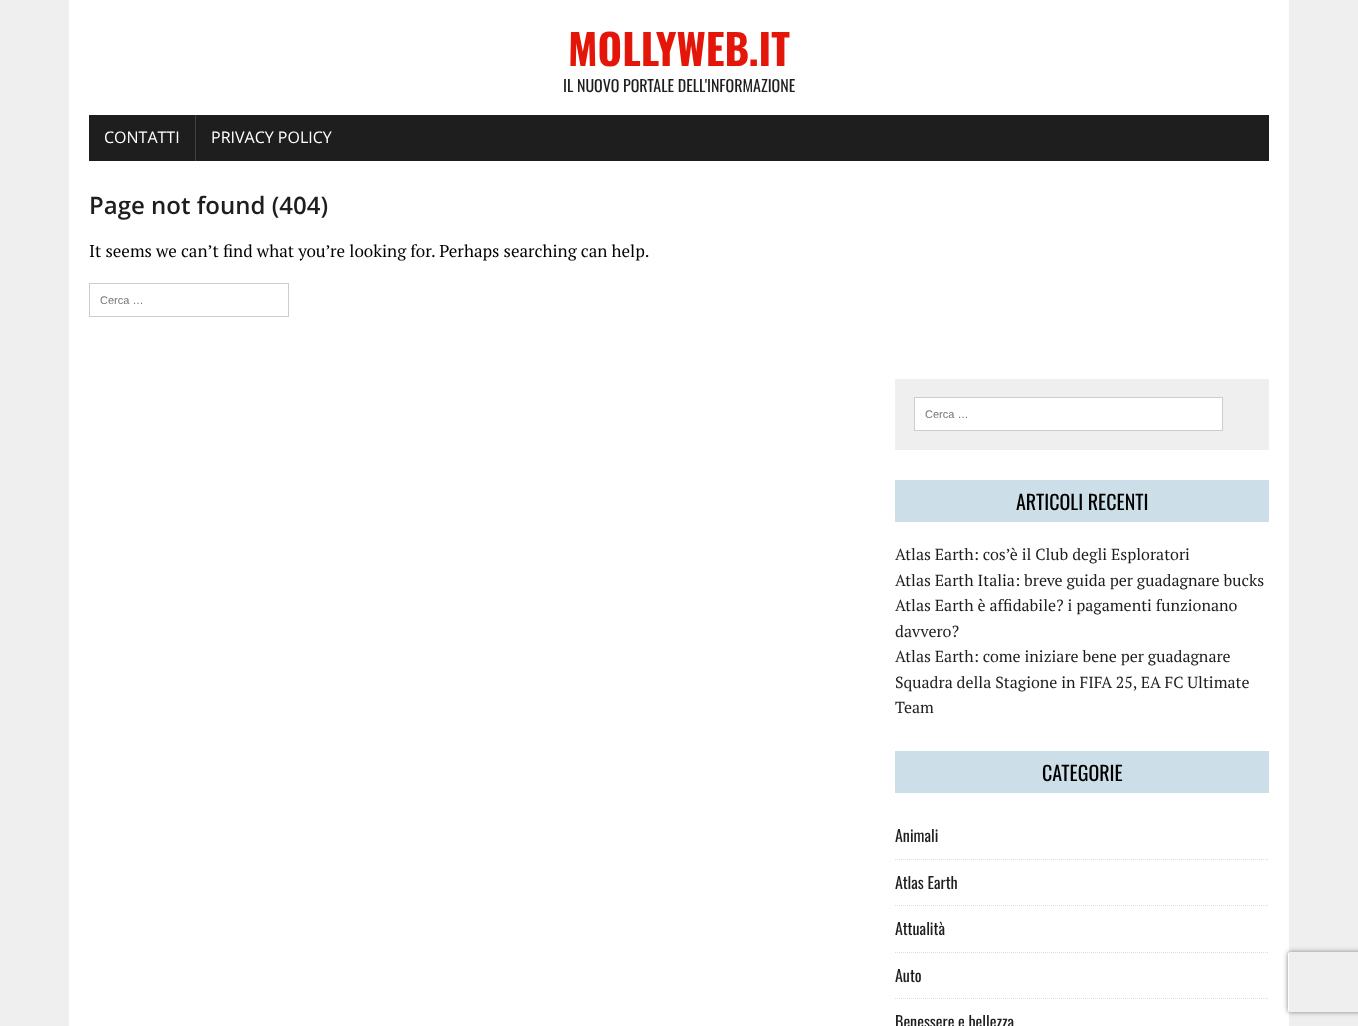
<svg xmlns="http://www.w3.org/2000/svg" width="1358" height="1026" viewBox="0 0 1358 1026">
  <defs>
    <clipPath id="clip1"><path d="M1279 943H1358V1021H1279ZM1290 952H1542C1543 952 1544 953 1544 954V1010C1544 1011 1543 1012 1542 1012H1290C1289 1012 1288 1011 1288 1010V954C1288 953 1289 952 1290 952Z" clip-rule="evenodd"/></clipPath>
    <filter id="blur1" x="-50%" y="-200%" width="200%" height="500%"><feGaussianBlur stdDeviation="2.5"/></filter>
  </defs>
  <rect width="100%" height="100%" fill="#efefef"/>
  <rect x="69" y="0" width="1220" height="1026" fill="#ffffff"/>
  <text x="568" y="66" font-family="Oswald" font-size="42" font-weight="bold" fill="#e41609">MOLLYWEB.IT</text>
  <text x="563" y="92" font-family="Oswald" font-size="16" fill="#1f1e1e">IL NUOVO PORTALE DELL'INFORMAZIONE</text>
  <rect x="89" y="115" width="1180" height="46" fill="#1f1e1e"/>
  <text x="104" y="143" font-family="Open Sans" font-size="16" fill="#ffffff">CONTATTI</text>
  <rect x="195" y="115" width="1" height="46" fill="#424242"/>
  <text x="211" y="143" font-family="Open Sans" font-size="16" fill="#ffffff">PRIVACY POLICY</text>
  <text x="89" y="214" font-family="Open Sans" font-size="24" font-weight="600" fill="#1f1e1e">Page not found (404)</text>
  <text x="89" y="257" font-family="PT Serif" font-size="17" fill="#000000">It seems we can’t find what you’re looking for. Perhaps searching can help.</text>
  <rect x="89.5" y="283.5" width="199" height="33" fill="none" stroke="#cdcdcd"/>
  <text x="100" y="304" font-family="Liberation Sans" font-size="11" fill="#757575">Cerca …</text>
  <rect x="895" y="379" width="374" height="71" fill="#efefef"/>
  <rect x="914.5" y="397.5" width="308" height="33" fill="#ffffff" stroke="#cdcdcd"/>
  <text x="925" y="418" font-family="Liberation Sans" font-size="11" fill="#757575">Cerca …</text>
  <rect x="895" y="480" width="374" height="42" fill="#ccdee8"/>
  <text x="1016" y="510" font-family="Oswald" font-size="20" fill="#000000">ARTICOLI RECENTI</text>
  <text x="895" y="560" font-family="PT Serif" font-size="16" fill="#1f1e1e">Atlas Earth: cos’è il Club degli Esploratori</text>
  <text x="895" y="586" font-family="PT Serif" font-size="16" fill="#1f1e1e">Atlas Earth Italia: breve guida per guadagnare bucks</text>
  <text x="895" y="611" font-family="PT Serif" font-size="16" fill="#1f1e1e">Atlas Earth è affidabile? i pagamenti funzionano</text>
  <text x="895" y="637" font-family="PT Serif" font-size="16" fill="#1f1e1e">davvero?</text>
  <text x="895" y="662" font-family="PT Serif" font-size="16" fill="#1f1e1e">Atlas Earth: come iniziare bene per guadagnare</text>
  <text x="895" y="688" font-family="PT Serif" font-size="16" fill="#1f1e1e">Squadra della Stagione in FIFA 25, EA FC Ultimate</text>
  <text x="895" y="713" font-family="PT Serif" font-size="16" fill="#1f1e1e">Team</text>
  <rect x="895" y="751" width="374" height="42" fill="#ccdee8"/>
  <text x="1042" y="781" font-family="Oswald" font-size="20" fill="#000000">CATEGORIE</text>
  <path d="M895 859.5H1269" fill="none" stroke="#dcdcdc" stroke-dasharray="1 1"/>
  <text x="895" y="842" font-family="Oswald" font-size="16" fill="#1f1e1e">Animali</text>
  <path d="M895 905.5H1269" fill="none" stroke="#dcdcdc" stroke-dasharray="1 1"/>
  <text x="895" y="889" font-family="Oswald" font-size="16" fill="#1f1e1e">Atlas Earth</text>
  <path d="M895 952.5H1269" fill="none" stroke="#dcdcdc" stroke-dasharray="1 1"/>
  <text x="895" y="935" font-family="Oswald" font-size="16" fill="#1f1e1e">Attualità</text>
  <path d="M895 998.5H1269" fill="none" stroke="#dcdcdc" stroke-dasharray="1 1"/>
  <text x="895" y="982" font-family="Oswald" font-size="16" fill="#1f1e1e">Auto</text>
  <text x="895" y="1028" font-family="Oswald" font-size="16" fill="#1f1e1e">Benessere e bellezza</text>
  <g clip-path="url(#clip1)">
    <rect x="1288" y="952" width="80" height="60" rx="2" fill="#808080" filter="url(#blur1)"/>
  </g>
</svg>
